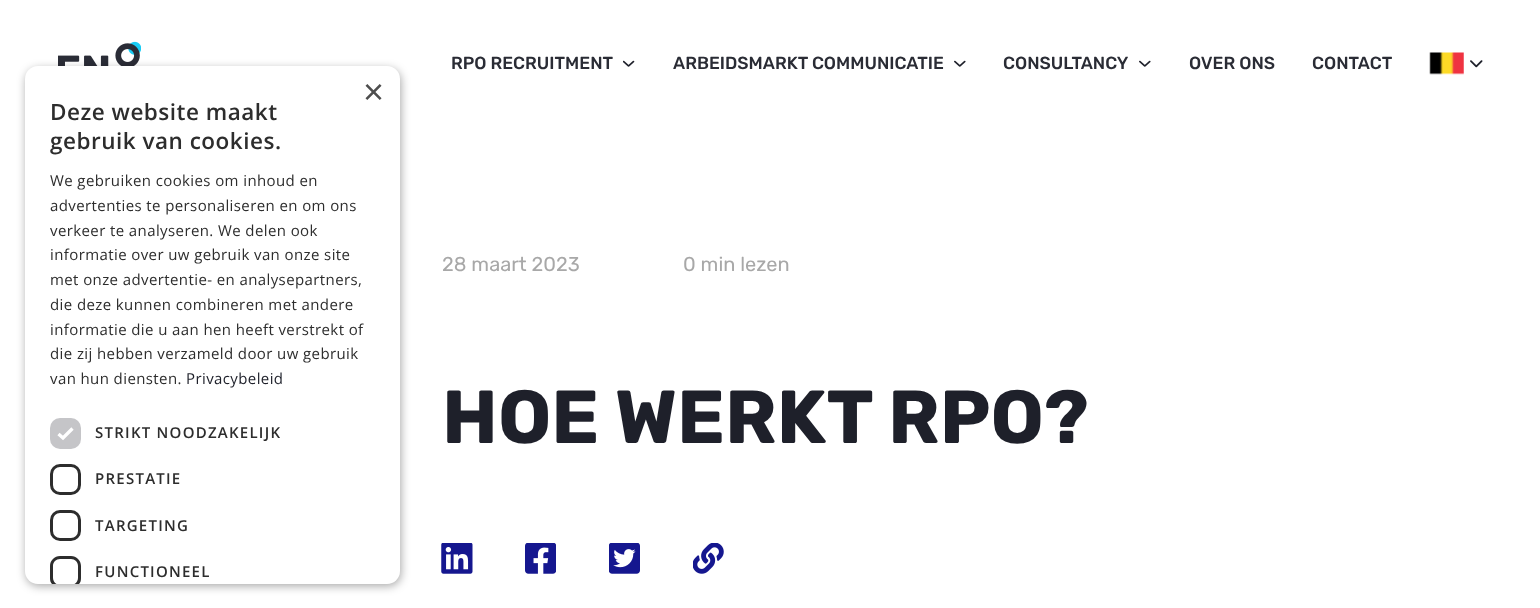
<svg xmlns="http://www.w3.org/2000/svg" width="1540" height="608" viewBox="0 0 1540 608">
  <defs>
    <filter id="blur1" x="-50%" y="-200%" width="200%" height="500%"><feGaussianBlur stdDeviation="5"/></filter>
  </defs>
  <rect width="100%" height="100%" fill="#ffffff"/>
  <image x="58" y="41" width="83" height="25" href="img1.png"/>
  <text x="451" y="69" font-family="Rubik" font-size="17.5" font-weight="500" fill="#2a2c35">RPO RECRUITMENT</text>
  <image x="623" y="60" width="12" height="7" href="img2.png"/>
  <text x="673" y="69" font-family="Rubik" font-size="17.5" font-weight="500" fill="#2a2c35">ARBEIDSMARKT COMMUNICATIE</text>
  <image x="954" y="60" width="12" height="7" href="img3.png"/>
  <text x="1003" y="69" font-family="Rubik" font-size="17.5" font-weight="500" fill="#2a2c35">CONSULTANCY</text>
  <image x="1139" y="60" width="12" height="7" href="img3.png"/>
  <text x="1189" y="69" font-family="Rubik" font-size="17.5" font-weight="500" fill="#2a2c35">OVER ONS</text>
  <text x="1312" y="69" font-family="Rubik" font-size="17.5" font-weight="500" fill="#2a2c35">CONTACT</text>
  <image x="1429" y="52" width="35" height="23" href="img4.png"/>
  <image x="1470" y="60" width="13" height="8" href="img5.png"/>
  <rect x="26" y="69" width="375" height="517" rx="13" fill="#000000" fill-opacity="0.35" filter="url(#blur1)"/>
  <rect x="25" y="66" width="375" height="518" rx="13" fill="#ffffff"/>
  <text x="363" y="104" font-family="Liberation Sans" font-size="36" fill="#4d4d4d">×</text>
  <text x="50" y="120" font-family="Open Sans" font-size="22.5" font-weight="600" letter-spacing="0.5" fill="#2d2d2d">Deze website maakt</text>
  <text x="50" y="149" font-family="Open Sans" font-size="22.5" font-weight="600" letter-spacing="0.5" fill="#2d2d2d">gebruik van cookies.</text>
  <text x="50" y="186" font-family="Open Sans" font-size="15" letter-spacing="0.4" fill="#2d2d2d">We gebruiken cookies om inhoud en</text>
  <text x="50" y="211" font-family="Open Sans" font-size="15" letter-spacing="0.4" fill="#2d2d2d">advertenties te personaliseren en om ons</text>
  <text x="50" y="236" font-family="Open Sans" font-size="15" letter-spacing="0.4" fill="#2d2d2d">verkeer te analyseren. We delen ook</text>
  <text x="50" y="260" font-family="Open Sans" font-size="15" letter-spacing="0.4" fill="#2d2d2d">informatie over uw gebruik van onze site</text>
  <text x="50" y="285" font-family="Open Sans" font-size="15" letter-spacing="0.4" fill="#2d2d2d">met onze advertentie- en analysepartners,</text>
  <text x="50" y="310" font-family="Open Sans" font-size="15" letter-spacing="0.4" fill="#2d2d2d">die deze kunnen combineren met andere</text>
  <text x="50" y="335" font-family="Open Sans" font-size="15" letter-spacing="0.4" fill="#2d2d2d">informatie die u aan hen heeft verstrekt of</text>
  <text x="50" y="359" font-family="Open Sans" font-size="15" letter-spacing="0.4" fill="#2d2d2d">die zij hebben verzameld door uw gebruik</text>
  <text x="50" y="384" font-family="Open Sans" font-size="15" letter-spacing="0.4" fill="#2d2d2d">van hun diensten.</text>
  <text x="186" y="384" font-family="Open Sans" font-size="15" letter-spacing="0.4" fill="#1e202a">Privacybeleid</text>
  <rect x="50" y="418" width="31" height="31" rx="10" fill="#c5c5c8"/>
  <path d="M58.5 434L63 438L72.5 428.5" fill="none" stroke="#ffffff" stroke-width="3.3"/>
  <text x="95" y="438" font-family="Open Sans" font-size="15" font-weight="600" letter-spacing="1.25" fill="#2d2d2d">STRIKT NOODZAKELIJK</text>
  <rect x="51.5" y="465.5" width="28" height="28" rx="8.5" fill="none" stroke="#2d2d2d" stroke-width="3"/>
  <text x="95" y="484" font-family="Open Sans" font-size="15" font-weight="600" letter-spacing="1.25" fill="#2d2d2d">PRESTATIE</text>
  <rect x="51.5" y="511.5" width="28" height="28" rx="8.5" fill="none" stroke="#2d2d2d" stroke-width="3"/>
  <text x="95" y="531" font-family="Open Sans" font-size="15" font-weight="600" letter-spacing="1.25" fill="#2d2d2d">TARGETING</text>
  <path d="M60 556C54.5 556 50 560.5 50 566V578C50 580.5 50.5 582.5 52 584H56.5C54.5 583 53 580.5 53 578V566C53 562 56 559 60 559H71C75 559 78 562 78 566V578C78 580.5 76.5 583 74.5 584H79C80.5 582.5 81 580.5 81 578V566C81 560.5 76.5 556 71 556Z" fill="#2d2d2d"/>
  <text x="95" y="577" font-family="Open Sans" font-size="15" font-weight="600" letter-spacing="1.25" fill="#2d2d2d">FUNCTIONEEL</text>
  <text x="442" y="271" font-family="Rubik" font-size="20" fill="#a8a8a8">28 maart 2023</text>
  <text x="683" y="271" font-family="Rubik" font-size="20" fill="#a8a8a8">0 min lezen</text>
  <text x="442" y="443" font-family="Rubik" font-size="75" font-weight="bold" fill="#1e202a">HOE WERKT RPO?</text>
  <image x="441" y="543" width="32" height="31" href="img6.png"/>
  <image x="525" y="543" width="31" height="31" href="img7.png"/>
  <image x="609" y="543" width="31" height="31" href="img8.png"/>
  <image x="693" y="543" width="31" height="31" href="img9.png"/>
</svg>
